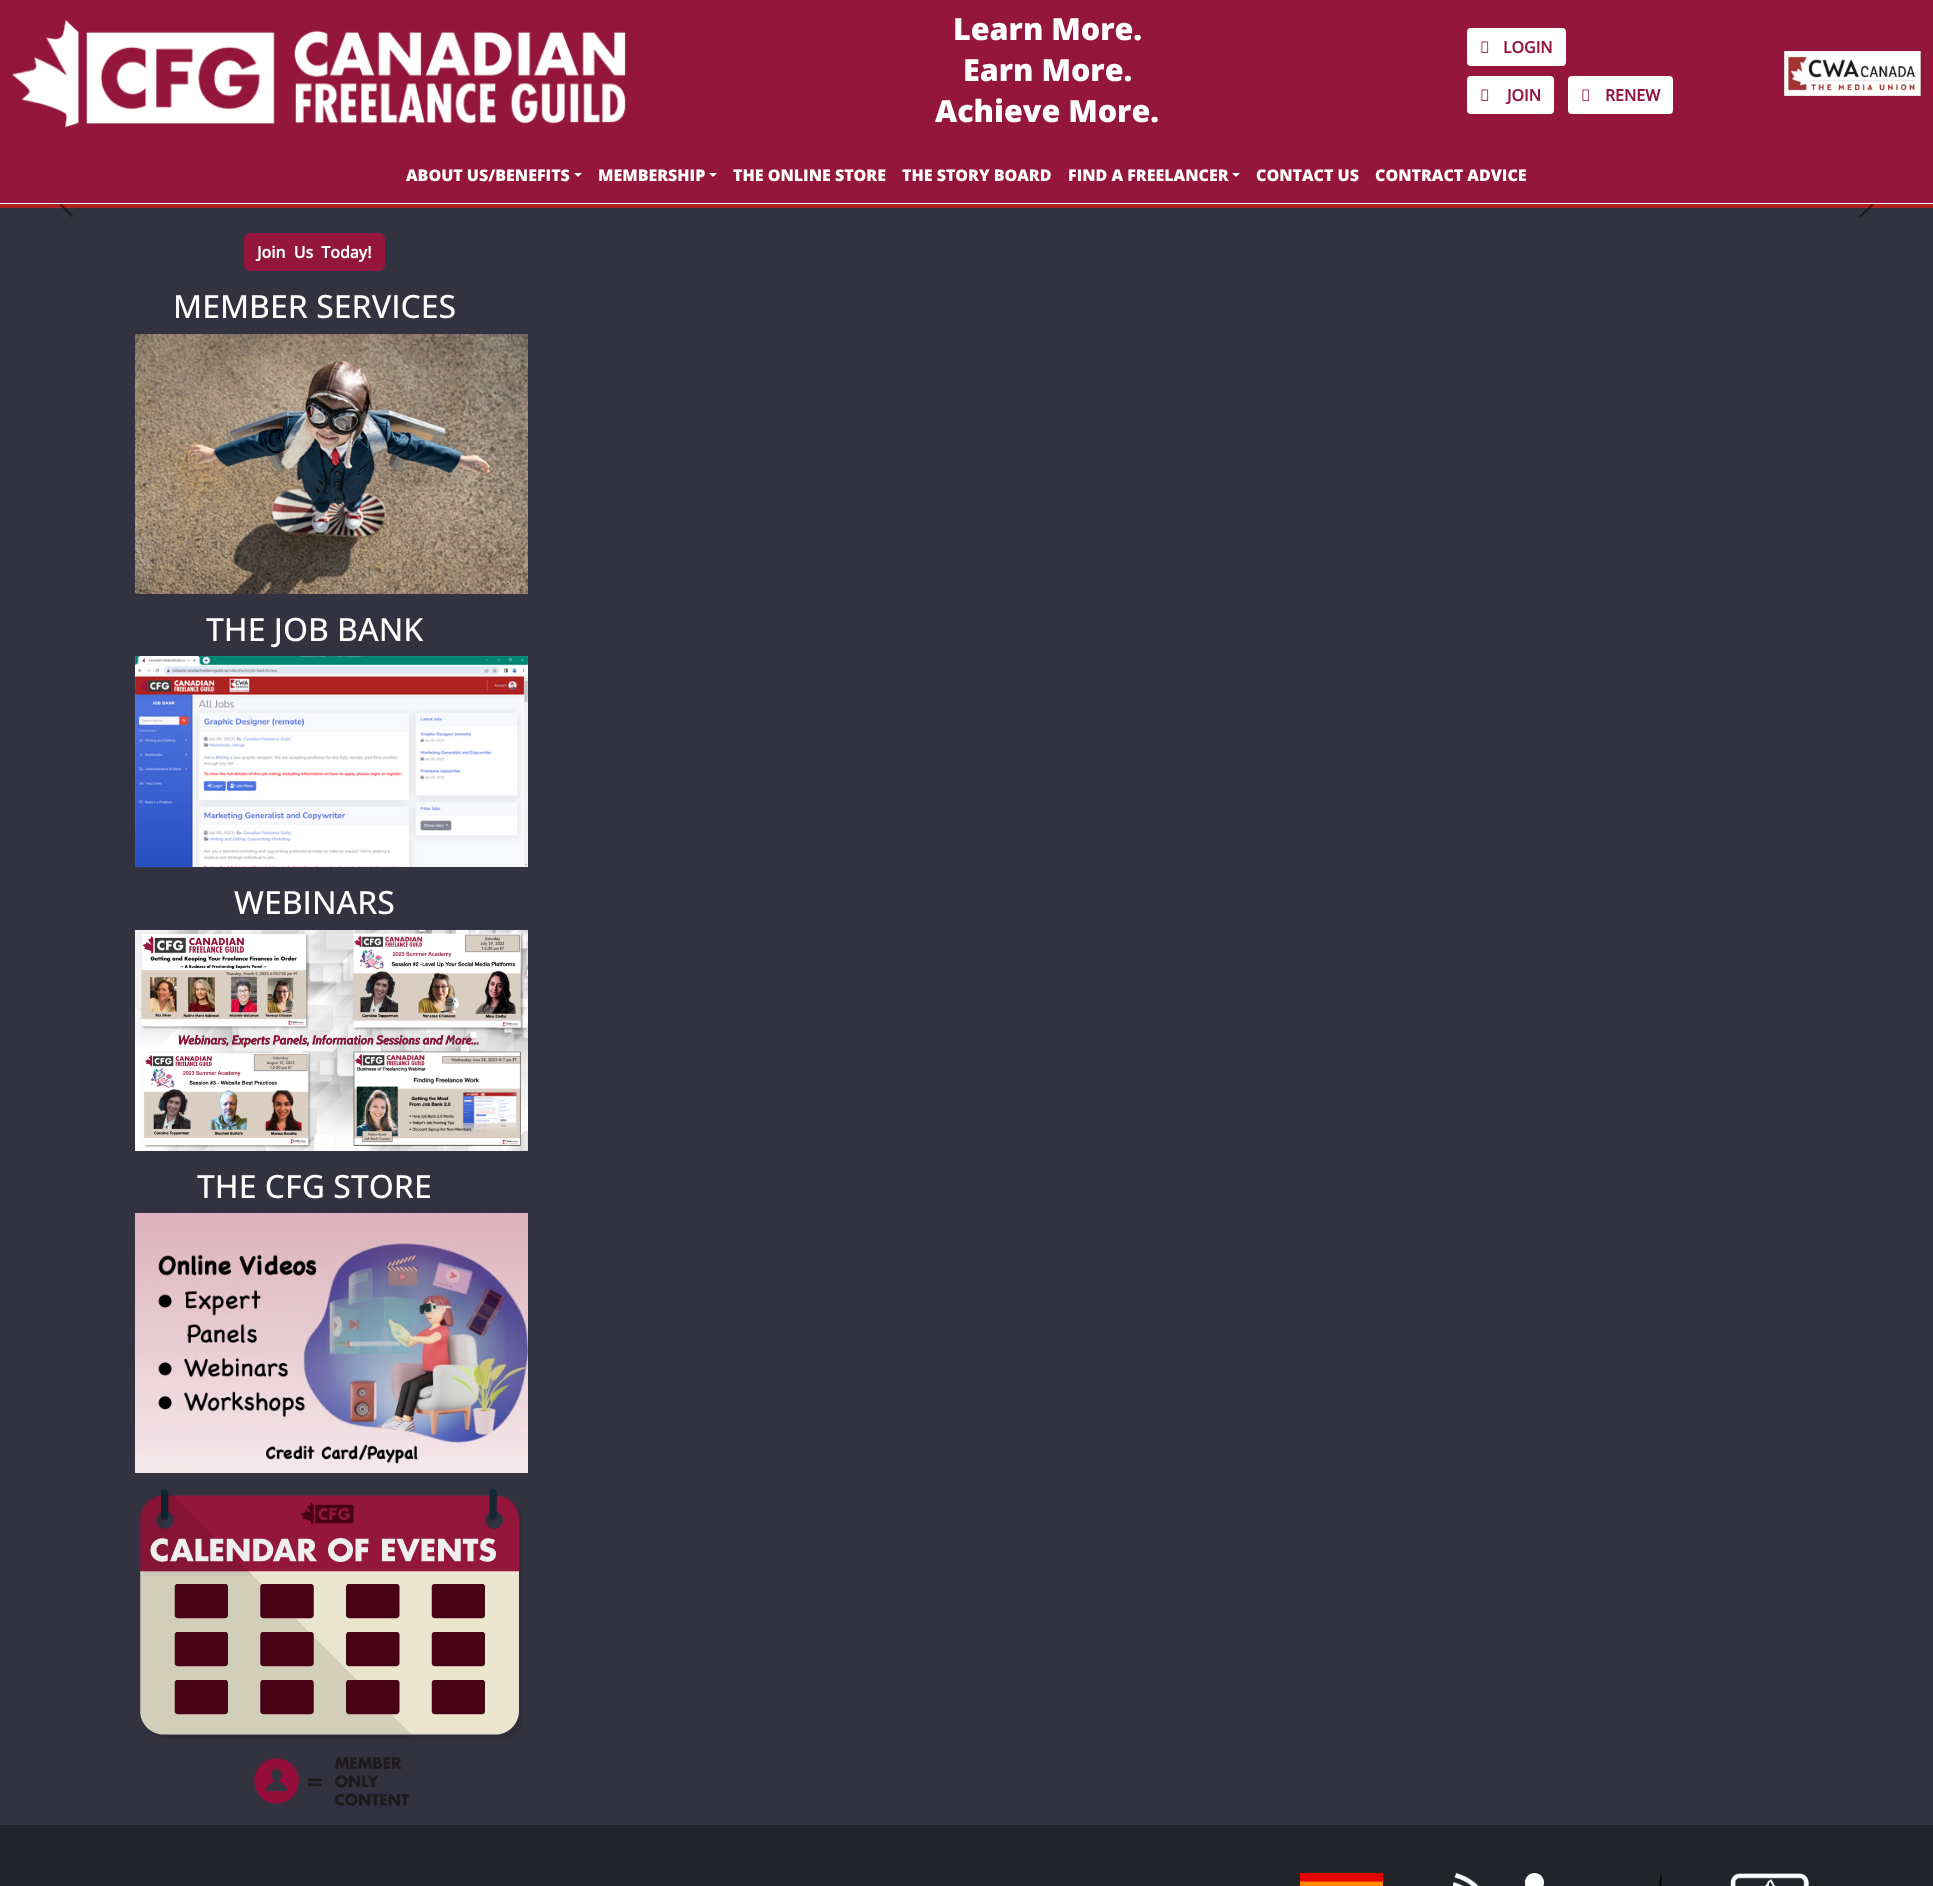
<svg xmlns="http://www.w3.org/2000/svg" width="1933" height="1886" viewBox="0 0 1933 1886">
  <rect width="100%" height="100%" fill="#323241"/>
  <rect x="0" y="0" width="1933" height="203" fill="#94163c"/>
  <rect x="0" y="203" width="1933" height="1" fill="#ffffff"/>
  <image x="12" y="20" width="614" height="108" href="img1.png"/>
  <text x="953" y="40" font-family="Open Sans" font-size="30.5" font-weight="800" fill="#ffffff">Learn More.</text>
  <text x="963" y="81" font-family="Open Sans" font-size="30.5" font-weight="800" fill="#ffffff">Earn More.</text>
  <text x="935" y="122" font-family="Open Sans" font-size="30.5" font-weight="800" fill="#ffffff">Achieve More.</text>
  <rect x="1467" y="28" width="99" height="38" rx="4" fill="#ffffff"/>
  <image x="1481" y="41" width="8" height="12" href="img2.png"/>
  <text x="1503" y="53" font-family="Open Sans" font-size="16" font-weight="bold" fill="#94163c">LOGIN</text>
  <rect x="1467" y="76" width="87" height="38" rx="4" fill="#ffffff"/>
  <image x="1481" y="89" width="8" height="12" href="img2.png"/>
  <text x="1507" y="101" font-family="Open Sans" font-size="16" font-weight="bold" fill="#94163c">JOIN</text>
  <rect x="1568" y="76" width="105" height="38" rx="4" fill="#ffffff"/>
  <image x="1582" y="89" width="8" height="12" href="img2.png"/>
  <text x="1605" y="101" font-family="Open Sans" font-size="16" font-weight="bold" fill="#94163c">RENEW</text>
  <image x="1784" y="51" width="137" height="45" href="img3.png"/>
  <text x="406" y="181" font-family="Open Sans" font-size="16" font-weight="800" fill="#ffffff">ABOUT US/BENEFITS</text>
  <path d="M574 173H582L578 177Z" fill="#ffffff"/>
  <text x="598" y="181" font-family="Open Sans" font-size="16" font-weight="800" fill="#ffffff">MEMBERSHIP</text>
  <path d="M709 173H717L713 177Z" fill="#ffffff"/>
  <text x="733" y="181" font-family="Open Sans" font-size="16" font-weight="800" fill="#ffffff">THE ONLINE STORE</text>
  <text x="902" y="181" font-family="Open Sans" font-size="16" font-weight="800" fill="#ffffff">THE STORY BOARD</text>
  <text x="1068" y="181" font-family="Open Sans" font-size="16" font-weight="800" fill="#ffffff">FIND A FREELANCER</text>
  <path d="M1232 173H1240L1236 177Z" fill="#ffffff"/>
  <text x="1256" y="181" font-family="Open Sans" font-size="16" font-weight="800" fill="#ffffff">CONTACT US</text>
  <text x="1375" y="181" font-family="Open Sans" font-size="16" font-weight="800" fill="#ffffff">CONTRACT ADVICE</text>
  <rect x="0" y="204" width="1933" height="4" fill="#ae2222"/>
  <image x="59" y="204" width="14" height="13" href="img4.png"/>
  <image x="1860" y="204" width="14" height="13" href="img5.png"/>
  <rect x="244.5" y="233.5" width="140" height="37" rx="5.5" fill="#94163c" stroke="#94163c"/>
  <text x="257" y="258" word-spacing="4" font-family="Open Sans" font-size="16" font-weight="bold" fill="#ffffff">Join Us Today!</text>
  <text x="173" y="318" font-family="Open Sans" font-size="32" font-weight="500" fill="#ffffff">MEMBER SERVICES</text>
  <image x="135" y="334" width="393" height="260" href="img6.png"/>
  <text x="206" y="641" font-family="Open Sans" font-size="32" font-weight="500" fill="#ffffff">THE JOB BANK</text>
  <image x="135" y="656" width="393" height="211" href="img7.png"/>
  <text x="234" y="914" font-family="Open Sans" font-size="32" font-weight="500" fill="#ffffff">WEBINARS</text>
  <image x="135" y="930" width="393" height="221" href="img8.png"/>
  <text x="197" y="1198" font-family="Open Sans" font-size="32" font-weight="500" fill="#ffffff">THE CFG STORE</text>
  <image x="135" y="1213" width="393" height="260" href="img9.png"/>
  <image x="140" y="1489" width="383" height="250" href="img10.png"/>
  <image x="254" y="1757" width="155" height="49" href="img11.png"/>
  <rect x="0" y="1825" width="1933" height="61" fill="#212529"/>
  <image x="1300" y="1873" width="83" height="13" href="img12.png"/>
  <image x="1452" y="1873" width="28" height="13" href="img13.png"/>
  <image x="1524" y="1873" width="20" height="13" href="img14.png"/>
  <image x="1659" y="1874" width="3" height="12" href="img15.png"/>
  <image x="1730" y="1873" width="79" height="13" href="img16.png"/>
</svg>
